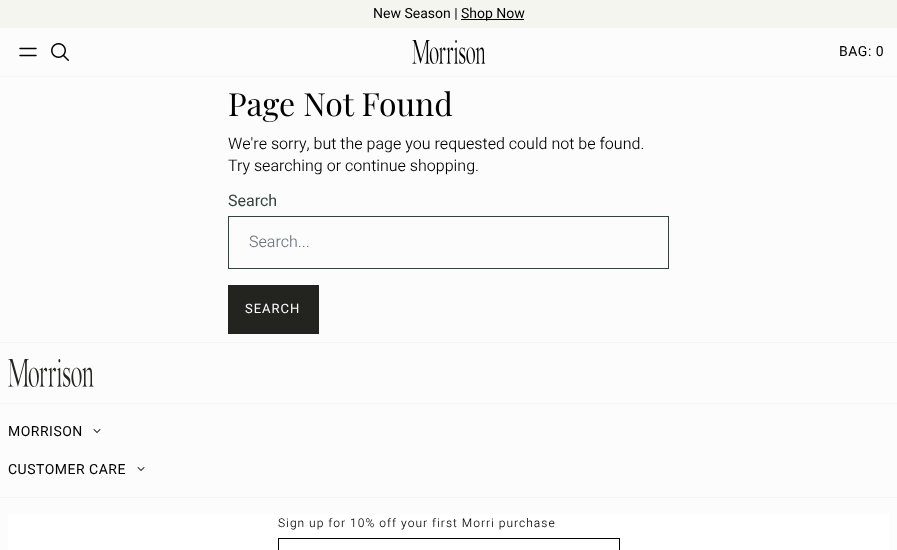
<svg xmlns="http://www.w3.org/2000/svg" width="897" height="550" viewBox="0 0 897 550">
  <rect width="100%" height="100%" fill="#fcfcfc"/>
  <rect x="0" y="0" width="897" height="28" fill="#f5f5f0"/>
  <text x="373" y="18" font-family="Heebo" font-size="14" fill="#000000">New Season |</text>
  <rect x="461" y="19" width="63" height="1" fill="#000000"/>
  <text x="461" y="18" font-family="Heebo" font-size="14" fill="#000000">Shop Now</text>
  <rect x="0" y="76" width="897" height="1" fill="#f5f5f5"/>
  <path d="M20 48.5H36M20 55.5H36" fill="none" stroke="#000000" stroke-width="1.5" stroke-linecap="round" stroke-linejoin="round"/>
  <image x="51" y="43" width="18" height="18" href="img1.png"/>
  <image x="412" y="40" width="73" height="24" href="img2.png"/>
  <text x="839" y="56" font-family="Heebo" font-size="14" letter-spacing="0.5" fill="#000000">BAG: 0</text>
  <text x="228" y="116" font-family="Playfair Display" font-size="32" fill="#000000">Page Not Found</text>
  <text x="228" y="149" font-family="Heebo" font-size="16" font-weight="300" fill="#000000">We're sorry, but the page you requested could not be found.</text>
  <text x="228" y="171" font-family="Heebo" font-size="16" font-weight="300" fill="#000000">Try searching or continue shopping.</text>
  <text x="228" y="206" font-family="Heebo" font-size="16" fill="#31443e">Search</text>
  <rect x="228.5" y="216.5" width="440" height="52" fill="none" stroke="#31443e"/>
  <text x="249" y="247" font-family="Heebo" font-size="16" font-weight="300" fill="#6b7280">Search...</text>
  <rect x="228" y="285" width="91" height="49" fill="#232320"/>
  <text x="245" y="313" font-family="Heebo" font-size="13" letter-spacing="1" fill="#ffffff">SEARCH</text>
  <rect x="0" y="342" width="897" height="1" fill="#f5f5f5"/>
  <rect x="0" y="403" width="897" height="1" fill="#f5f5f5"/>
  <image x="8" y="359" width="86" height="28" href="img3.png"/>
  <text x="8" y="436" font-family="Heebo" font-size="14" letter-spacing="0.5" fill="#000000">MORRISON</text>
  <image x="93" y="429" width="8" height="4" href="img4.png"/>
  <rect x="0" y="497" width="897" height="1" fill="#f5f5f5"/>
  <text x="8" y="474" font-family="Heebo" font-size="14" letter-spacing="0.5" fill="#000000">CUSTOMER CARE</text>
  <image x="137" y="467" width="8" height="4" href="img4.png"/>
  <rect x="8" y="514" width="881" height="36" fill="#ffffff"/>
  <text x="278" y="527" font-family="Heebo" font-size="12" font-weight="300" letter-spacing="1" fill="#000000">Sign up for 10% off your first Morri purchase</text>
  <rect x="278.5" y="538.5" width="341" height="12" fill="none" stroke="#000000"/>
</svg>
